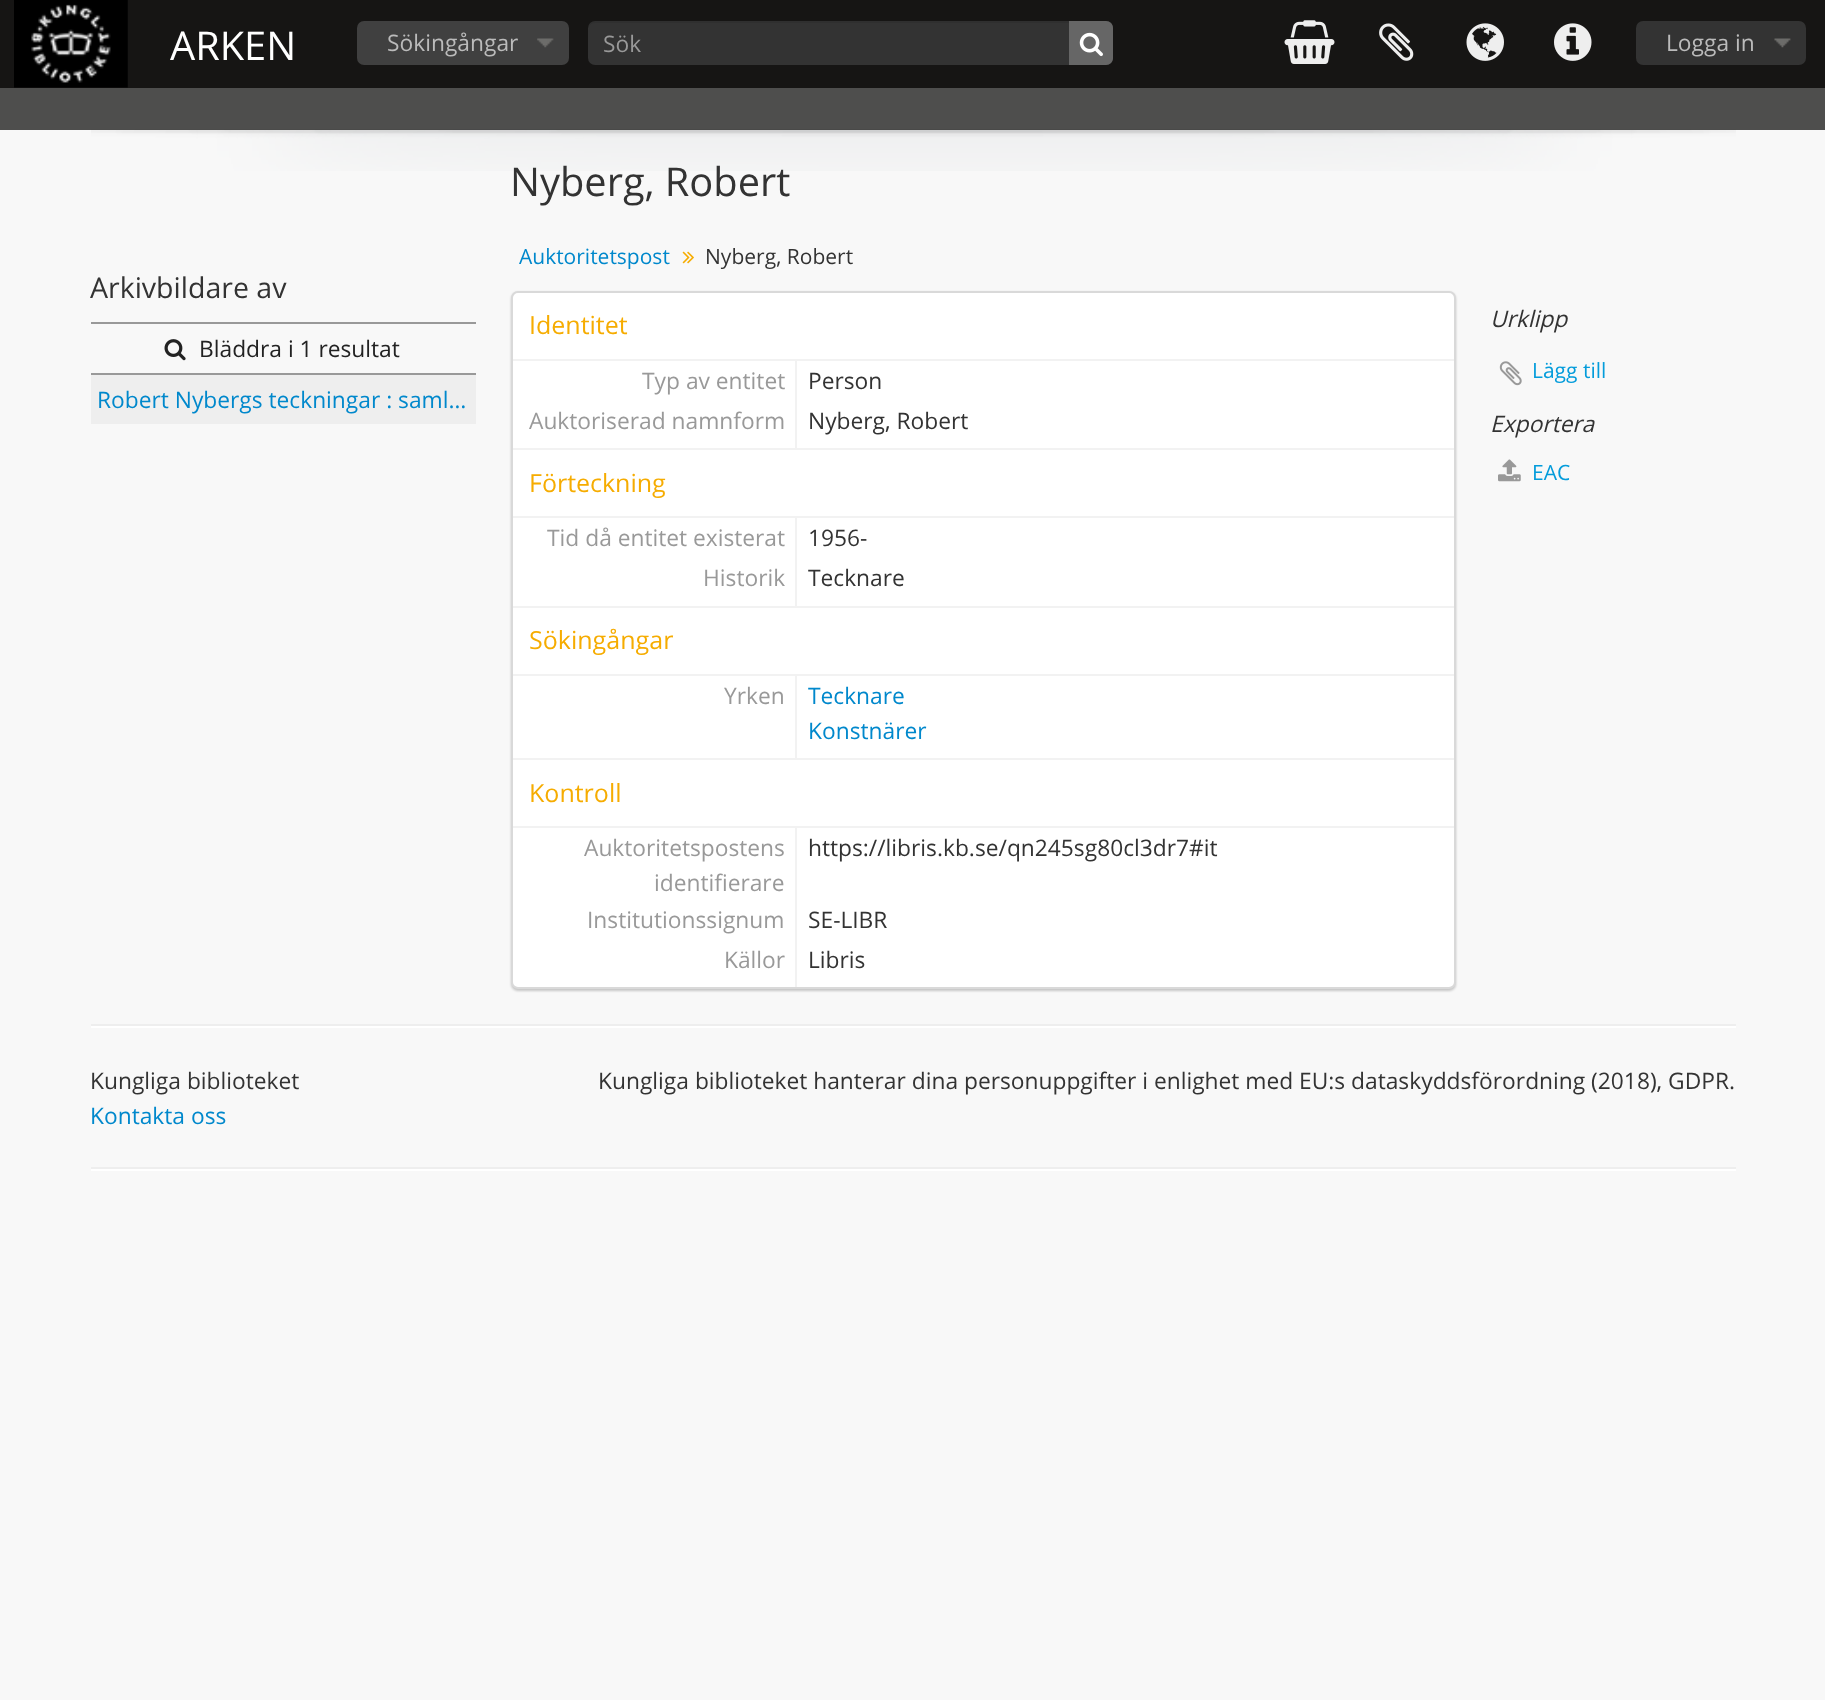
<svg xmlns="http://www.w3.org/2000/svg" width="1825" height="1700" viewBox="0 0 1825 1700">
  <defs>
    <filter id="blur1" x="-50%" y="-200%" width="200%" height="500%"><feGaussianBlur stdDeviation="1"/></filter>
  </defs>
  <rect width="100%" height="100%" fill="#f8f8f8"/>
  <rect x="0" y="0" width="1825" height="88" fill="#161514"/>
  <image x="14" y="0" width="114" height="88" href="img1.png"/>
  <text x="170" y="60" font-family="Open Sans" font-size="39.75" fill="#ffffff">ARKEN</text>
  <rect x="357" y="21" width="212" height="44" rx="7" fill="#404040"/>
  <image x="537" y="38" width="17" height="10" href="img2.png"/>
  <text x="387" y="51" font-family="Open Sans" font-size="22.75" fill="#bbbbbb">Sökingångar</text>
  <rect x="588" y="21" width="525" height="44" rx="7" fill="#333333"/>
  <path d="M595 23H1106C1110 23 1113 26 1113 30C1113 26 1111 21 1106 21H595C590 21 588 26 588 30C588 26 591 23 595 23Z" fill="#000000" fill-opacity="0.07"/>
  <text x="603" y="52" font-family="Open Sans" font-size="22.75" fill="#999999">Sök</text>
  <path d="M1069 21H1106C1110 21 1113 24 1113 28V58C1113 62 1110 65 1106 65H1069Z" fill="#666666"/>
  <image x="1079" y="32" width="24" height="25" href="img3.png"/>
  <image x="1284" y="20" width="51" height="44" href="img4.png"/>
  <image x="1379" y="23" width="35" height="38" href="img5.png"/>
  <image x="1466" y="23" width="38" height="38" href="img6.png"/>
  <image x="1554" y="23" width="38" height="38" href="img7.png"/>
  <rect x="1636" y="21" width="170" height="44" rx="7" fill="#333333"/>
  <image x="1774" y="38" width="17" height="10" href="img8.png"/>
  <text x="1666" y="51" font-family="Open Sans" font-size="22.75" fill="#bbbbbb">Logga in</text>
  <image x="91" y="129" width="1645" height="42" href="img9.png"/>
  <rect x="0" y="88" width="1825" height="42" fill="#161514" fill-opacity="0.75"/>
  <text x="90" y="298" font-family="Open Sans" font-size="28.5" fill="#333333">Arkivbildare av</text>
  <rect x="91" y="322" width="385" height="2" fill="#999999"/>
  <image x="164" y="339" width="22" height="22" href="img10.png"/>
  <text x="199" y="357" font-family="Open Sans" font-size="22.75" fill="#222222">Bläddra i 1 resultat</text>
  <rect x="91" y="375" width="385" height="49" fill="#eeeeee"/>
  <rect x="91" y="373" width="385" height="2" fill="#999999"/>
  <text x="97" y="408" font-family="Open Sans" font-size="22.75" fill="#0088cc">Robert Nybergs teckningar : saml…</text>
  <text x="510" y="196" font-family="Open Sans" font-size="39.75" fill="#333333">Nyberg, Robert</text>
  <text x="519" y="264" font-family="Open Sans" font-size="21" fill="#0088cc">Auktoritetspost</text>
  <image x="682" y="251" width="12" height="13" href="img11.png"/>
  <text x="705" y="264" font-family="Open Sans" font-size="21" fill="#333333">Nyberg, Robert</text>
  <rect x="511" y="292" width="945" height="699" rx="7" fill="#000000" fill-opacity="0.2" filter="url(#blur1)"/>
  <rect x="512" y="292" width="943" height="696" rx="6" fill="#ffffff" stroke="#d9d9d9" stroke-width="2"/>
  <rect x="513" y="359" width="941" height="2" fill="#f2f2f2"/>
  <text x="529" y="334" font-family="Open Sans" font-size="25" fill="#f6ac00">Identitet</text>
  <rect x="795" y="361" width="2" height="87" fill="#f2f2f2"/>
  <text x="642" y="389" font-family="Open Sans" font-size="22.75" fill="#999999">Typ av entitet</text>
  <text x="808" y="389" font-family="Open Sans" font-size="22.75" fill="#333333">Person</text>
  <text x="529" y="429" font-family="Open Sans" font-size="22.75" fill="#999999">Auktoriserad namnform</text>
  <text x="808" y="429" font-family="Open Sans" font-size="22.75" fill="#333333">Nyberg, Robert</text>
  <rect x="513" y="448" width="941" height="2" fill="#f2f2f2"/>
  <rect x="513" y="516" width="941" height="2" fill="#f2f2f2"/>
  <text x="529" y="492" font-family="Open Sans" font-size="25" fill="#f6ac00">Förteckning</text>
  <rect x="795" y="518" width="2" height="88" fill="#f2f2f2"/>
  <text x="547" y="546" font-family="Open Sans" font-size="22.75" fill="#999999">Tid då entitet existerat</text>
  <text x="808" y="546" font-family="Open Sans" font-size="22.75" fill="#333333">1956-</text>
  <text x="703" y="586" font-family="Open Sans" font-size="22.75" fill="#999999">Historik</text>
  <text x="808" y="586" font-family="Open Sans" font-size="22.75" fill="#333333">Tecknare</text>
  <rect x="513" y="606" width="941" height="2" fill="#f2f2f2"/>
  <rect x="513" y="674" width="941" height="2" fill="#f2f2f2"/>
  <text x="529" y="649" font-family="Open Sans" font-size="25" fill="#f6ac00">Sökingångar</text>
  <rect x="795" y="676" width="2" height="82" fill="#f2f2f2"/>
  <text x="724" y="704" font-family="Open Sans" font-size="22.75" fill="#999999">Yrken</text>
  <text x="808" y="704" font-family="Open Sans" font-size="22.75" fill="#0088cc">Tecknare</text>
  <text x="808" y="739" font-family="Open Sans" font-size="22.75" fill="#0088cc">Konstnärer</text>
  <rect x="513" y="758" width="941" height="2" fill="#f2f2f2"/>
  <rect x="513" y="826" width="941" height="2" fill="#f2f2f2"/>
  <text x="529" y="802" font-family="Open Sans" font-size="25" fill="#f6ac00">Kontroll</text>
  <rect x="795" y="828" width="2" height="159" fill="#f2f2f2"/>
  <text x="584" y="856" font-family="Open Sans" font-size="22.75" fill="#999999">Auktoritetspostens</text>
  <text x="654" y="891" font-family="Open Sans" font-size="22.75" fill="#999999">identifierare</text>
  <text x="808" y="856" font-family="Open Sans" font-size="22.75" fill="#333333">https://libris.kb.se/qn245sg80cl3dr7#it</text>
  <text x="587" y="928" font-family="Open Sans" font-size="22.75" fill="#999999">Institutionssignum</text>
  <text x="808" y="928" font-family="Open Sans" font-size="22.75" fill="#333333">SE-LIBR</text>
  <text x="724" y="968" font-family="Open Sans" font-size="22.75" fill="#999999">Källor</text>
  <text x="808" y="968" font-family="Open Sans" font-size="22.75" fill="#333333">Libris</text>
  <text x="1490" y="327" font-family="Open Sans" font-size="22.75" font-style="italic" fill="#333333">Urklipp</text>
  <image x="1499" y="361" width="23" height="25" href="img12.png"/>
  <text x="1532" y="378" font-family="Open Sans" font-size="21" fill="#049cdb">Lägg till</text>
  <text x="1490" y="432" font-family="Open Sans" font-size="22.75" font-style="italic" fill="#333333">Exportera</text>
  <image x="1498" y="459" width="23" height="23" href="img13.png"/>
  <text x="1532" y="480" font-family="Open Sans" font-size="21" fill="#049cdb">EAC</text>
  <rect x="91" y="1024" width="1645" height="2" fill="#eeeeee"/>
  <rect x="91" y="1026" width="1645" height="2" fill="#ffffff"/>
  <text x="90" y="1089" font-family="Open Sans" font-size="22.75" fill="#333333">Kungliga biblioteket</text>
  <text x="90" y="1124" font-family="Open Sans" font-size="22.75" fill="#0088cc">Kontakta oss</text>
  <text x="598" y="1089" font-family="Open Sans" font-size="22.75" fill="#333333">Kungliga biblioteket hanterar dina personuppgifter i enlighet med EU:s dataskyddsförordning (2018), GDPR.</text>
  <rect x="91" y="1167" width="1645" height="2" fill="#eeeeee"/>
  <rect x="91" y="1169" width="1645" height="2" fill="#ffffff"/>
</svg>
